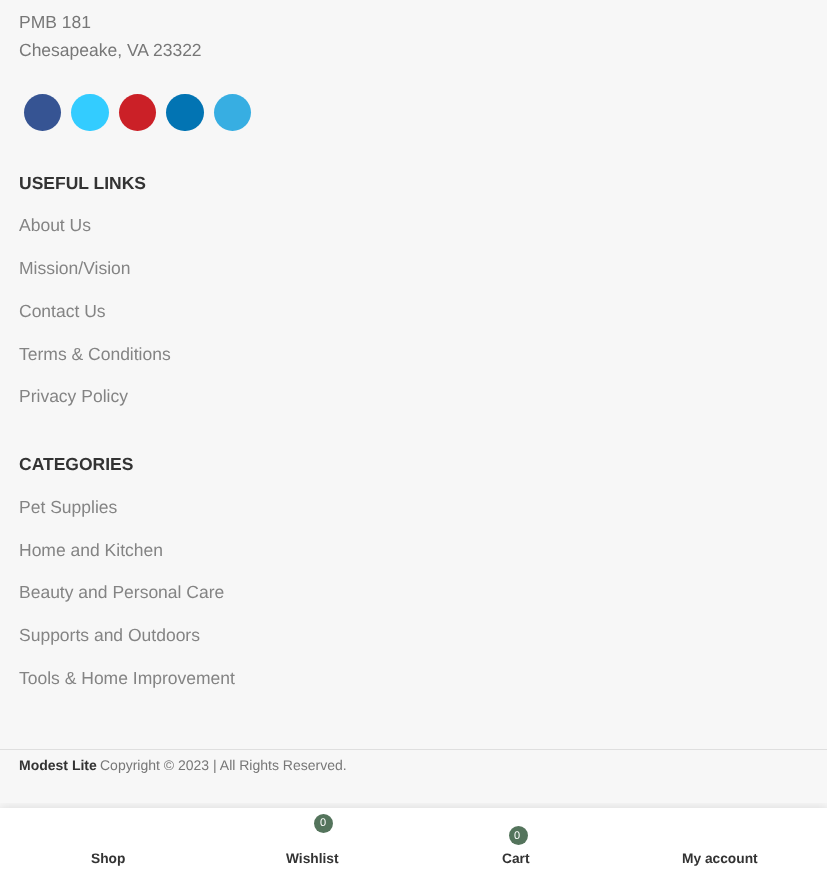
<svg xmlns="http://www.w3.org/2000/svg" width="827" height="876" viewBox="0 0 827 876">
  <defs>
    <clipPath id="clip1"><rect x="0" y="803" width="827" height="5"/></clipPath>
    <filter id="blur1" x="-50%" y="-200%" width="200%" height="500%"><feGaussianBlur stdDeviation="5.5"/></filter>
  </defs>
  <rect width="100%" height="100%" fill="#ffffff"/>
  <rect x="0" y="0" width="827" height="808" fill="#f7f7f7"/>
  <rect x="0" y="749" width="827" height="1" fill="#dfdfdf"/>
  <text x="19" y="28" font-family="Liberation Sans" font-size="17.5" fill="#777777">PMB 181</text>
  <text x="19" y="56" font-family="Liberation Sans" font-size="17.5" fill="#777777">Chesapeake, VA 23322</text>
  <circle cx="42.5" cy="112.5" r="18.5" fill="#365493"/>
  <rect x="71" y="94" width="38" height="37" rx="18.5" fill="#33ccff"/>
  <circle cx="137.5" cy="112.5" r="18.5" fill="#cb2027"/>
  <rect x="166" y="94" width="38" height="37" rx="18.5" fill="#0274b3"/>
  <circle cx="232.5" cy="112.5" r="18.5" fill="#37aee2"/>
  <text x="19" y="189" font-family="Liberation Sans" font-size="17.5" font-weight="bold" fill="#333333">USEFUL LINKS</text>
  <text x="19" y="231" font-family="Liberation Sans" font-size="17.5" fill="#848484">About Us</text>
  <text x="19" y="274" font-family="Liberation Sans" font-size="17.5" fill="#848484">Mission/Vision</text>
  <text x="19" y="317" font-family="Liberation Sans" font-size="17.5" fill="#848484">Contact Us</text>
  <text x="19" y="360" font-family="Liberation Sans" font-size="17.5" fill="#848484">Terms &amp; Conditions</text>
  <text x="19" y="402" font-family="Liberation Sans" font-size="17.5" fill="#848484">Privacy Policy</text>
  <text x="19" y="470" font-family="Liberation Sans" font-size="17.5" font-weight="bold" fill="#333333">CATEGORIES</text>
  <text x="19" y="513" font-family="Liberation Sans" font-size="17.5" fill="#848484">Pet Supplies</text>
  <text x="19" y="556" font-family="Liberation Sans" font-size="17.5" fill="#848484">Home and Kitchen</text>
  <text x="19" y="598" font-family="Liberation Sans" font-size="17.5" fill="#848484">Beauty and Personal Care</text>
  <text x="19" y="641" font-family="Liberation Sans" font-size="17.5" fill="#848484">Supports and Outdoors</text>
  <text x="19" y="684" font-family="Liberation Sans" font-size="17.5" fill="#848484">Tools &amp; Home Improvement</text>
  <text x="19" y="770" font-family="Liberation Sans" font-size="14" font-weight="bold" fill="#333333">Modest Lite</text>
  <text x="100" y="770" font-family="Liberation Sans" font-size="14" fill="#777777">Copyright © 2023 | All Rights Reserved.</text>
  <g clip-path="url(#clip1)">
    <rect x="0" y="808" width="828" height="68" fill="#000000" fill-opacity="0.12" filter="url(#blur1)"/>
  </g>
  <text x="91" y="863" font-family="Liberation Sans" font-size="13.75" font-weight="bold" fill="#333333">Shop</text>
  <circle cx="323.5" cy="823.5" r="9.5" fill="#54745c"/>
  <text x="320" y="826" font-family="Liberation Sans" font-size="11" fill="#ffffff">0</text>
  <text x="286" y="863" font-family="Liberation Sans" font-size="13.75" font-weight="bold" fill="#333333">Wishlist</text>
  <circle cx="518.5" cy="835.5" r="9.5" fill="#54745c"/>
  <text x="514" y="839" font-family="Liberation Sans" font-size="11" fill="#ffffff">0</text>
  <text x="502" y="863" font-family="Liberation Sans" font-size="13.75" font-weight="bold" fill="#333333">Cart</text>
  <text x="682" y="863" font-family="Liberation Sans" font-size="13.75" font-weight="bold" fill="#333333">My account</text>
</svg>
